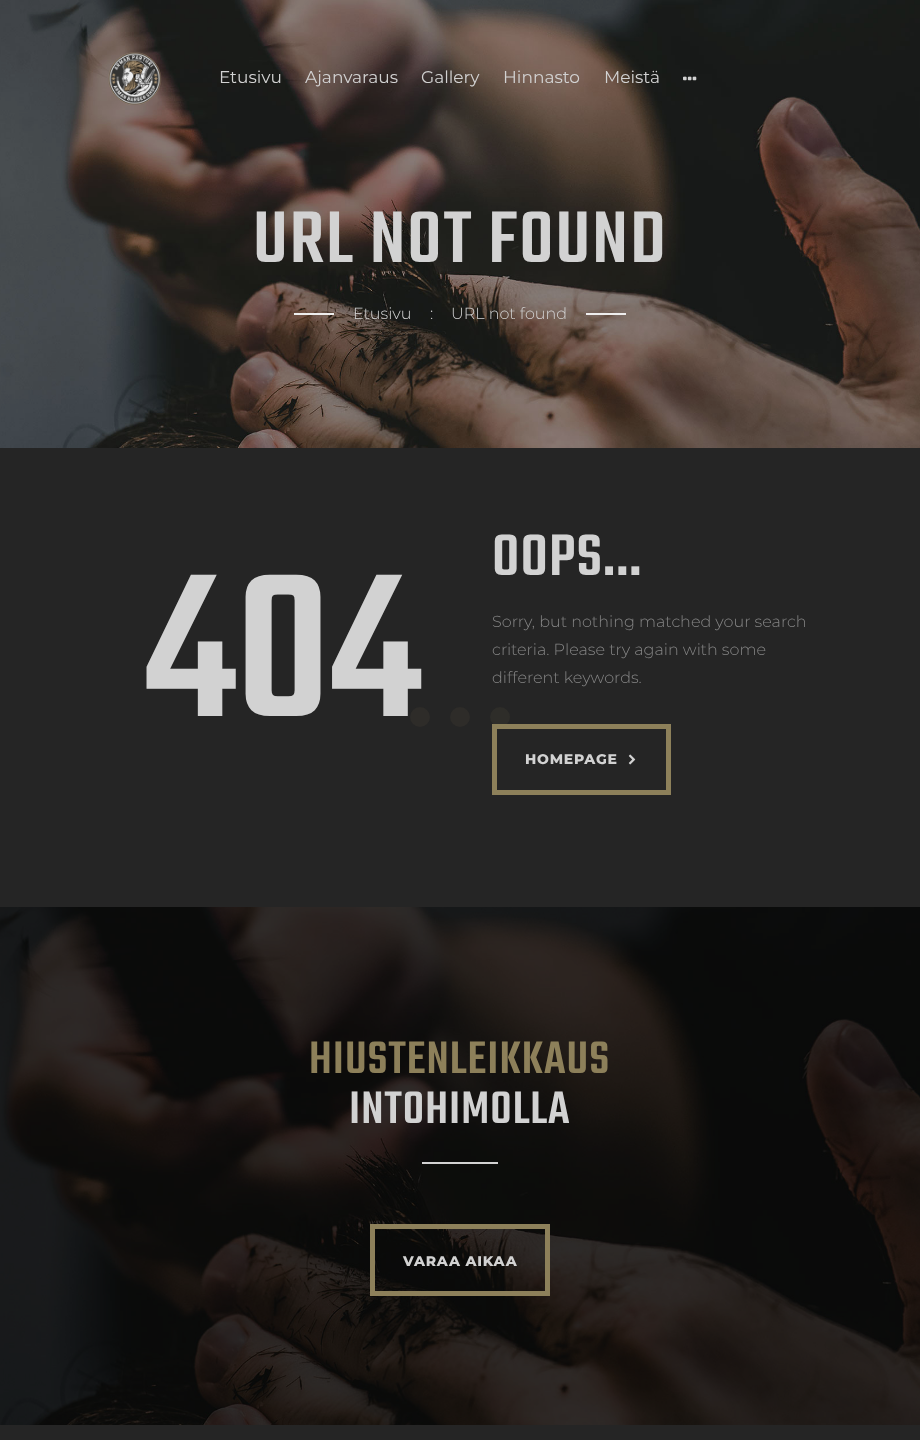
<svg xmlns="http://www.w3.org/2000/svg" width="920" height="1440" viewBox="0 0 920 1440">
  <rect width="100%" height="100%" fill="#252525"/>
  <image x="0" y="0" width="920" height="448" href="img1.png"/>
  <image x="108" y="52" width="54" height="53" href="img2.png"/>
  <text x="219" y="83" font-family="Montserrat" font-size="17" fill="#d2d2d2">Etusivu</text>
  <text x="305" y="83" font-family="Montserrat" font-size="17" fill="#d2d2d2">Ajanvaraus</text>
  <text x="421" y="83" font-family="Montserrat" font-size="17" fill="#d2d2d2">Gallery</text>
  <text x="503" y="83" font-family="Montserrat" font-size="17" fill="#d2d2d2">Hinnasto</text>
  <text x="604" y="83" font-family="Montserrat" font-size="17" fill="#d2d2d2">Meistä</text>
  <image x="683" y="76" width="14" height="5" href="img3.png"/>
  <text x="253" y="262" font-family="Teko" font-size="80" font-weight="500" letter-spacing="2" fill="#d2d2d2">URL NOT FOUND</text>
  <rect x="294" y="313" width="40" height="2" fill="#eeeeee"/>
  <text x="353" y="319" font-family="Montserrat" font-size="16" font-weight="300" fill="#d2d2d2">Etusivu</text>
  <text x="430" y="319" font-family="Montserrat" font-size="16" font-weight="300" fill="#d2d2d2">:</text>
  <text x="451" y="319" font-family="Montserrat" font-size="16" font-weight="300" fill="#d2d2d2">URL not found</text>
  <rect x="586" y="313" width="40" height="2" fill="#eeeeee"/>
  <text x="145" y="716" font-family="Teko" font-size="224" font-weight="500" fill="#d2d2d2">404</text>
  <text x="492" y="575" font-family="Teko" font-size="64" font-weight="500" letter-spacing="1" fill="#d2d2d2">OOPS...</text>
  <text x="492" y="627" font-family="Montserrat" font-size="16" font-weight="300" fill="#858585">Sorry, but nothing matched your search</text>
  <text x="492" y="655" font-family="Montserrat" font-size="16" font-weight="300" fill="#858585">criteria. Please try again with some</text>
  <text x="492" y="683" font-family="Montserrat" font-size="16" font-weight="300" fill="#858585">different keywords.</text>
  <rect x="494.5" y="726.5" width="174" height="66" fill="none" stroke="#8d805a" stroke-width="5"/>
  <text x="525" y="764" font-family="Montserrat" font-size="14" font-weight="800" letter-spacing="0.75" fill="#d2d2d2">HOMEPAGE</text>
  <image x="628" y="754" width="8" height="11" href="img4.png"/>
  <image x="0" y="907" width="920" height="518" href="img5.png"/>
  <text x="309" y="1073" font-family="Teko" font-size="50" font-weight="500" letter-spacing="1" fill="#8d805a">HIUSTENLEIKKAUS</text>
  <text x="349" y="1123" font-family="Teko" font-size="50" font-weight="500" letter-spacing="1" fill="#d2d2d2">INTOHIMOLLA</text>
  <rect x="422" y="1162" width="76" height="2" fill="#d2d2d2"/>
  <rect x="372.5" y="1226.5" width="175" height="67" fill="none" stroke="#8d805a" stroke-width="5"/>
  <text x="403" y="1266" font-family="Montserrat" font-size="14" font-weight="800" letter-spacing="0.75" fill="#d2d2d2">VARAA AIKAA</text>
  <circle cx="420" cy="717" r="10" fill="#2e2c29"/>
  <circle cx="460" cy="717" r="10" fill="#2e2c29"/>
  <circle cx="500" cy="717" r="10" fill="#96885f" fill-opacity="0.08"/>
</svg>
